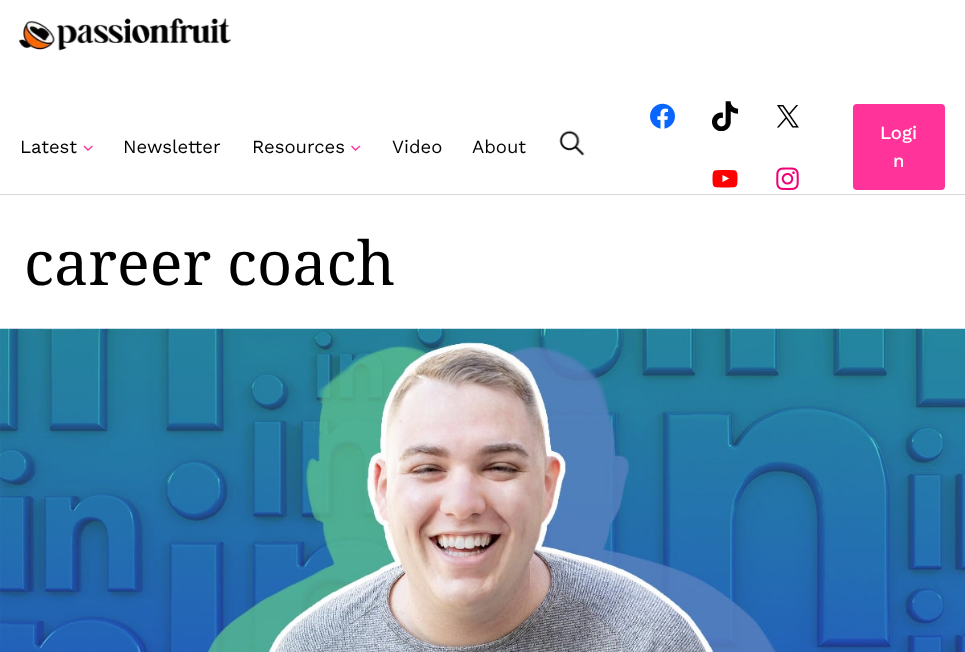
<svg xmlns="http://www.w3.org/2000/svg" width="965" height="652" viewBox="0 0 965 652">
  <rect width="100%" height="100%" fill="#ffffff"/>
  <rect x="0" y="194" width="965" height="1" fill="#d9d9d9"/>
  <image x="18" y="18" width="213" height="33" href="img1.png"/>
  <text x="20" y="153" font-family="Work Sans" font-size="18.5" fill="#000000">Latest</text>
  <path d="M84 146L88 150L92.5 146" fill="none" stroke="#ff3399" stroke-width="1.4"/>
  <text x="123" y="153" font-family="Work Sans" font-size="18.5" fill="#000000">Newsletter</text>
  <text x="252" y="153" font-family="Work Sans" font-size="18.5" fill="#000000">Resources</text>
  <path d="M351.5 146L355.5 150L360 146" fill="none" stroke="#ff3399" stroke-width="1.4"/>
  <text x="392" y="153" font-family="Work Sans" font-size="18.5" fill="#000000">Video</text>
  <text x="472" y="153" font-family="Work Sans" font-size="18.5" fill="#000000">About</text>
  <image x="559" y="130" width="26" height="26" href="img2.png"/>
  <image x="650" y="103" width="25" height="26" href="img3.png"/>
  <image x="712" y="101" width="27" height="30" href="img4.png"/>
  <image x="777" y="105" width="22" height="23" href="img5.png"/>
  <image x="712" y="169" width="26" height="19" href="img6.png"/>
  <image x="776" y="167" width="23" height="23" href="img7.png"/>
  <rect x="853" y="104" width="92" height="86" rx="4" fill="#ff3399"/>
  <text x="880" y="139" font-family="Work Sans" font-size="18.5" font-weight="500" fill="#ffffff">Logi</text>
  <text x="893" y="167" font-family="Work Sans" font-size="18.5" font-weight="500" fill="#ffffff">n</text>
  <text x="24" y="285" font-family="Noto Serif" font-size="61" fill="#000000">career coach</text>
  <image x="0" y="328" width="965" height="324" href="img8.png"/>
</svg>
